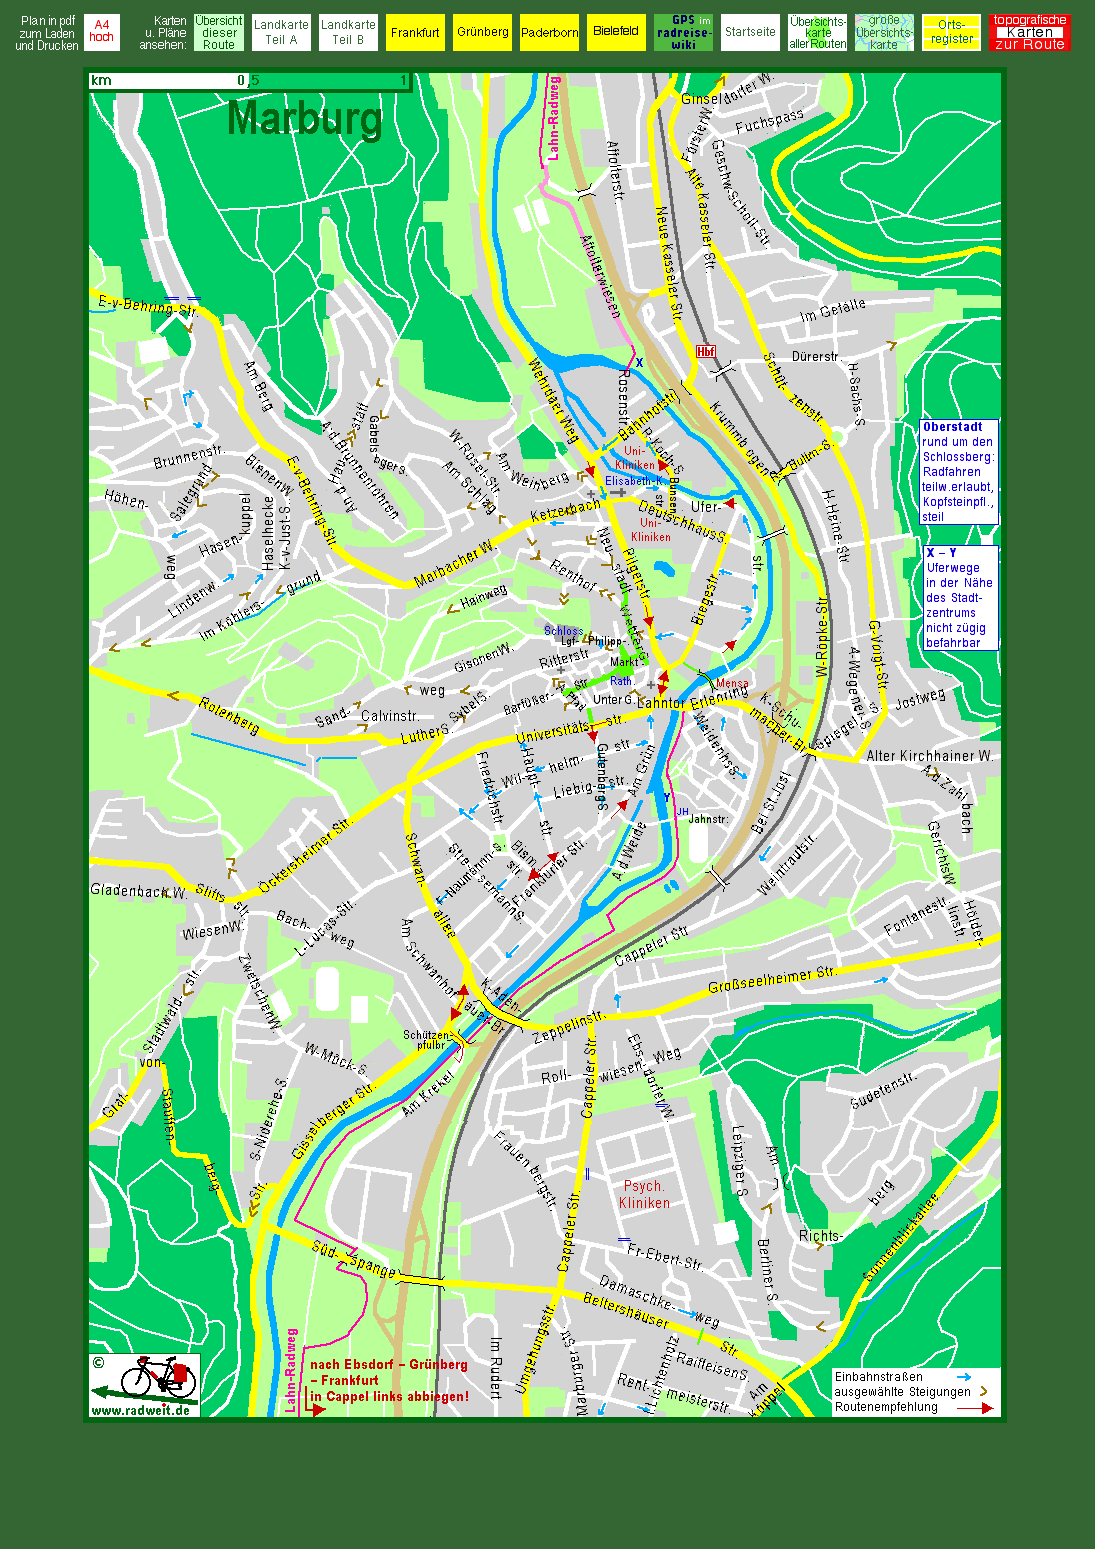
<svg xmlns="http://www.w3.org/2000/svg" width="1095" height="1549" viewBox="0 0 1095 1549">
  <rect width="100%" height="100%" fill="#336633"/>
  <image x="16" y="15" width="62" height="35" href="img1.png"/>
  <image x="84" y="14" width="36" height="37" href="img2.png"/>
  <image x="140" y="16" width="46" height="33" href="img3.png"/>
  <image x="194" y="14" width="50" height="37" href="img4.png"/>
  <image x="252" y="14" width="59" height="37" href="img5.png"/>
  <image x="319" y="14" width="59" height="37" href="img6.png"/>
  <image x="386" y="14" width="59" height="37" href="img7.png"/>
  <image x="453" y="14" width="59" height="37" href="img8.png"/>
  <image x="520" y="14" width="59" height="37" href="img9.png"/>
  <image x="587" y="14" width="59" height="37" href="img10.png"/>
  <image x="654" y="14" width="59" height="37" href="img11.png"/>
  <image x="721" y="14" width="59" height="37" href="img12.png"/>
  <image x="788" y="14" width="59" height="37" href="img13.png"/>
  <image x="855" y="14" width="59" height="37" href="img14.png"/>
  <image x="922" y="14" width="59" height="37" href="img15.png"/>
  <image x="989" y="14" width="82" height="37" href="img16.png"/>
  <image x="83" y="67" width="924" height="1356" href="img17.png"/>
</svg>
